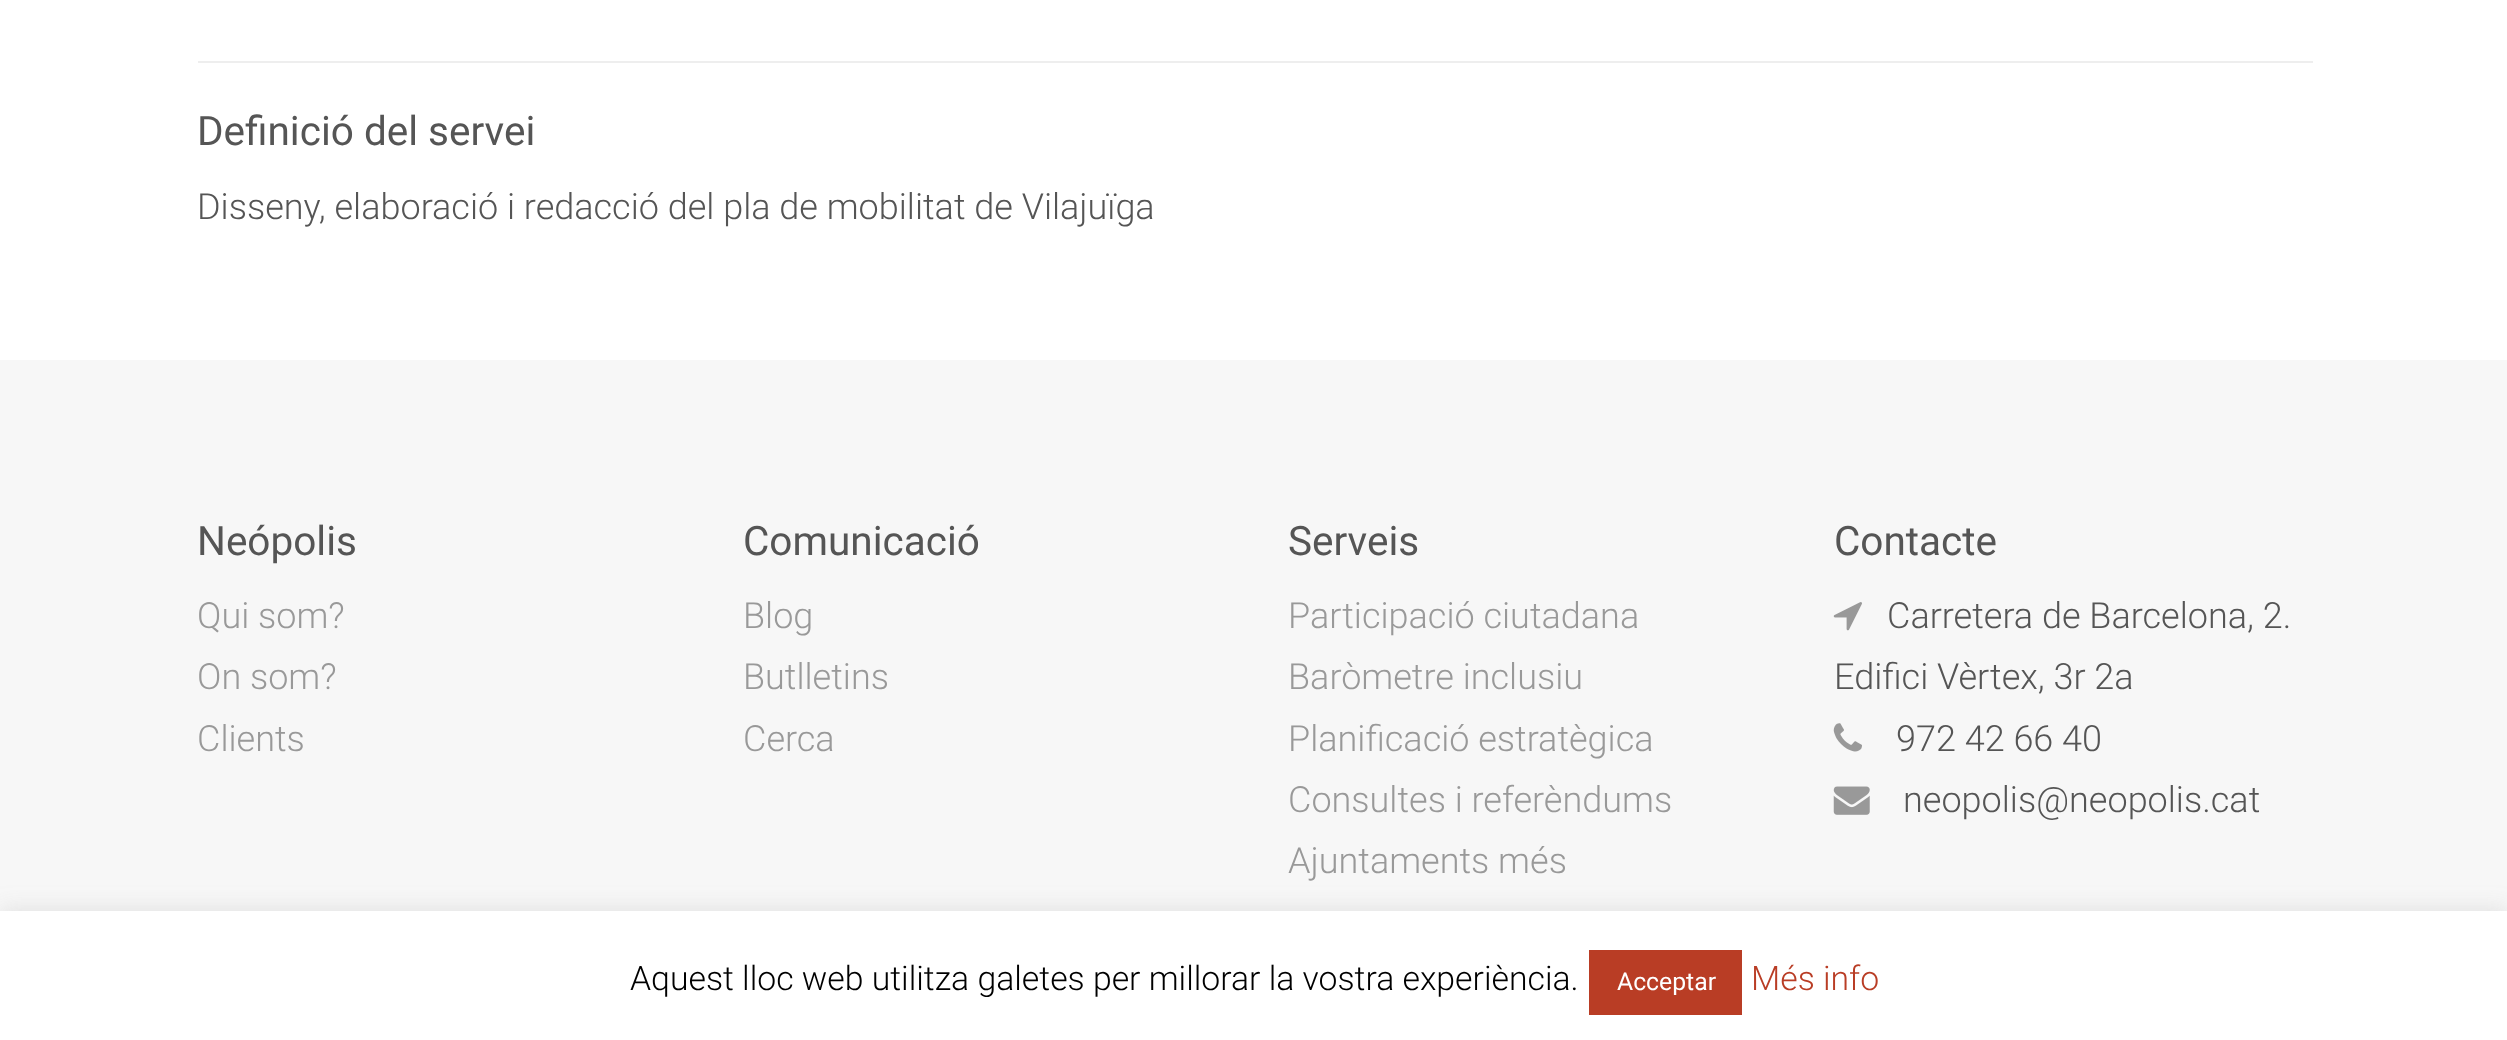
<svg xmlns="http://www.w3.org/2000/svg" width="2507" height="1040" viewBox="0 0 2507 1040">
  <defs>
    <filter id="blur1" x="-50%" y="-200%" width="200%" height="500%"><feGaussianBlur stdDeviation="11"/></filter>
  </defs>
  <rect width="100%" height="100%" fill="#ffffff"/>
  <rect x="198" y="61" width="2115" height="2" fill="#eeeeee"/>
  <text x="197" y="145" font-family="Roboto" font-size="40.5" fill="#555555">Definició del servei</text>
  <text x="197" y="219" font-family="Roboto" font-size="36" font-weight="300" fill="#555555">Disseny, elaboració i redacció del pla de mobilitat de Vilajuïga</text>
  <rect x="0" y="360" width="2507" height="551" fill="#f7f7f7"/>
  <text x="197" y="555" font-family="Roboto" font-size="40.5" fill="#555555">Neópolis</text>
  <text x="197" y="628" font-family="Roboto" font-size="36" font-weight="300" fill="#999999">Qui som?</text>
  <text x="197" y="689" font-family="Roboto" font-size="36" font-weight="300" fill="#999999">On som?</text>
  <text x="197" y="751" font-family="Roboto" font-size="36" font-weight="300" fill="#999999">Clients</text>
  <text x="743" y="555" font-family="Roboto" font-size="40.5" fill="#555555">Comunicació</text>
  <text x="743" y="628" font-family="Roboto" font-size="36" font-weight="300" fill="#999999">Blog</text>
  <text x="743" y="689" font-family="Roboto" font-size="36" font-weight="300" fill="#999999">Butlletins</text>
  <text x="743" y="751" font-family="Roboto" font-size="36" font-weight="300" fill="#999999">Cerca</text>
  <text x="1288" y="555" font-family="Roboto" font-size="40.5" fill="#555555">Serveis</text>
  <text x="1288" y="628" font-family="Roboto" font-size="36" font-weight="300" fill="#999999">Participació ciutadana</text>
  <text x="1288" y="689" font-family="Roboto" font-size="36" font-weight="300" fill="#999999">Baròmetre inclusiu</text>
  <text x="1288" y="751" font-family="Roboto" font-size="36" font-weight="300" fill="#999999">Planificació estratègica</text>
  <text x="1288" y="812" font-family="Roboto" font-size="36" font-weight="300" fill="#999999">Consultes i referèndums</text>
  <text x="1288" y="873" font-family="Roboto" font-size="36" font-weight="300" fill="#999999">Ajuntaments més</text>
  <text x="1834" y="555" font-family="Roboto" font-size="40.5" fill="#555555">Contacte</text>
  <image x="1833" y="602" width="29" height="29" href="img1.png"/>
  <text x="1887" y="628" font-family="Roboto" font-size="36" font-weight="300" fill="#555555">Carretera de Barcelona, 2.</text>
  <text x="1834" y="689" font-family="Roboto" font-size="36" font-weight="300" fill="#555555">Edifici Vèrtex, 3r 2a</text>
  <image x="1833" y="723" width="29" height="29" href="img2.png"/>
  <text x="1896" y="751" font-family="Roboto" font-size="36" font-weight="300" fill="#555555">972 42 66 40</text>
  <image x="1833" y="786" width="37" height="29" href="img3.png"/>
  <text x="1903" y="812" font-family="Roboto" font-size="36" font-weight="300" fill="#555555">neopolis@neopolis.cat</text>
  <rect x="0" y="909" width="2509" height="131" fill="#acabab" fill-opacity="0.3" filter="url(#blur1)"/>
  <rect x="0" y="911" width="2507" height="129" fill="#ffffff"/>
  <text x="630" y="990" font-family="Roboto" font-size="33.75" font-weight="300" fill="#000000">Aquest lloc web utilitza galetes per millorar la vostra experiència.</text>
  <rect x="1589" y="950" width="153" height="65" fill="#b93d25"/>
  <text x="1617" y="990" font-family="Roboto" font-size="24.75" fill="#ffffff">Acceptar</text>
  <text x="1751" y="990" font-family="Roboto" font-size="33.75" font-weight="300" fill="#b93d25">Més info</text>
</svg>
